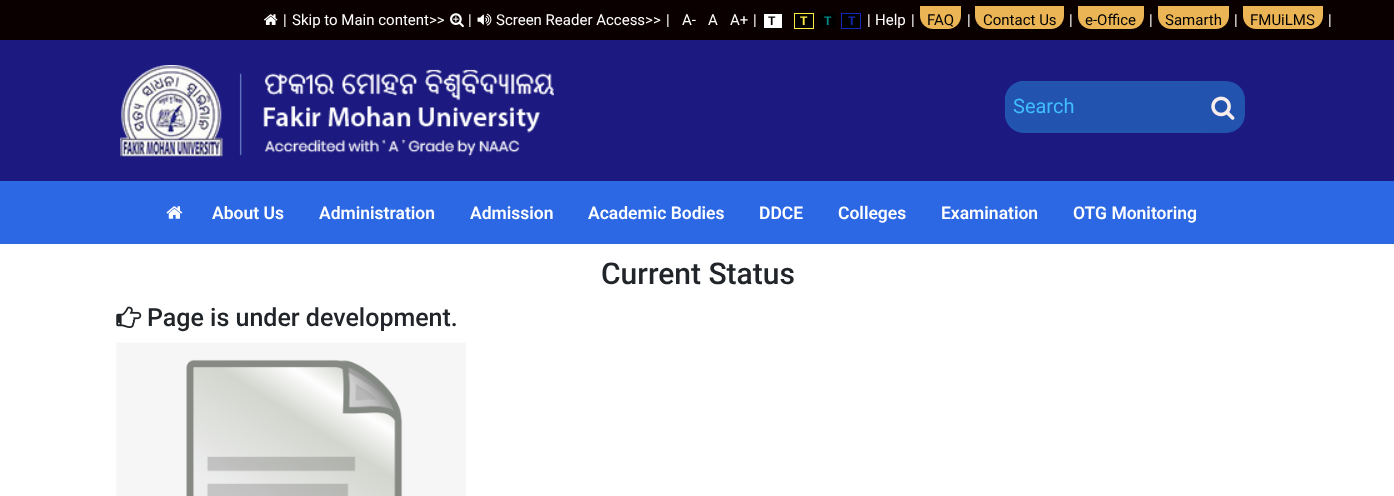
<svg xmlns="http://www.w3.org/2000/svg" width="1394" height="496" viewBox="0 0 1394 496">
  <rect width="100%" height="100%" fill="#ffffff"/>
  <rect x="0" y="0" width="1394" height="40" fill="#0b0000"/>
  <image x="264" y="14" width="14" height="11" href="img1.png"/>
  <text x="283" y="25" font-family="Roboto" font-size="15" fill="#ffffff">|</text>
  <text x="292" y="25" font-family="Roboto" font-size="15" fill="#ffffff">Skip to Main content&gt;&gt;</text>
  <image x="450" y="13" width="14" height="15" href="img2.png"/>
  <text x="468" y="25" font-family="Roboto" font-size="15" fill="#ffffff">|</text>
  <image x="477" y="13" width="15" height="13" href="img3.png"/>
  <text x="496" y="25" font-family="Roboto" font-size="15" fill="#ffffff">Screen Reader Access&gt;&gt;</text>
  <text x="666" y="25" font-family="Roboto" font-size="15" fill="#ffffff">|</text>
  <text x="682" y="25" font-family="Roboto" font-size="15" fill="#ffffff">A-</text>
  <text x="708" y="25" font-family="Roboto" font-size="15" fill="#ffffff">A</text>
  <text x="730" y="25" font-family="Roboto" font-size="15" fill="#ffffff">A+</text>
  <text x="753" y="25" font-family="Roboto" font-size="15" fill="#ffffff">|</text>
  <rect x="763.5" y="13.5" width="19" height="15" fill="#ffffff" stroke="#000000"/>
  <text x="768" y="25" font-family="Roboto" font-size="12" font-weight="bold" fill="#000000">T</text>
  <rect x="794.5" y="13.5" width="19" height="15" fill="#000000" stroke="#fdeb44"/>
  <text x="800" y="25" font-family="Roboto" font-size="12" font-weight="bold" fill="#fdeb44">T</text>
  <rect x="819" y="14" width="17" height="14" fill="#000000"/>
  <text x="824" y="25" font-family="Roboto" font-size="12" font-weight="bold" fill="#008b8b">T</text>
  <rect x="841.5" y="13.5" width="19" height="15" fill="#000000" stroke="#1529b6"/>
  <text x="848" y="25" font-family="Roboto" font-size="12" font-weight="bold" fill="#1529b6">T</text>
  <text x="867" y="25" font-family="Roboto" font-size="15" fill="#ffffff">|</text>
  <text x="875" y="25" font-family="Roboto" font-size="15" fill="#ffffff">Help</text>
  <text x="911" y="25" font-family="Roboto" font-size="15" fill="#ffffff">|</text>
  <path d="M920 6H961V16C961 23 955 29 948 29H933C926 29 920 23 920 16Z" fill="#ebb556"/>
  <text x="927" y="25" font-family="Roboto" font-size="15" fill="#000000">FAQ</text>
  <text x="967" y="25" font-family="Roboto" font-size="15" fill="#ffffff">|</text>
  <path d="M975 6H1064V16C1064 23 1058 29 1051 29H988C981 29 975 23 975 16Z" fill="#ebb556"/>
  <text x="983" y="25" font-family="Roboto" font-size="15" fill="#000000">Contact Us</text>
  <text x="1069" y="25" font-family="Roboto" font-size="15" fill="#ffffff">|</text>
  <path d="M1078 6H1144V16C1144 23 1138 29 1131 29H1091C1084 29 1078 23 1078 16Z" fill="#ebb556"/>
  <text x="1085" y="25" font-family="Roboto" font-size="15" fill="#000000">e-Office</text>
  <text x="1149" y="25" font-family="Roboto" font-size="15" fill="#ffffff">|</text>
  <path d="M1158 6H1229V16C1229 23 1223 29 1216 29H1171C1164 29 1158 23 1158 16Z" fill="#ebb556"/>
  <text x="1165" y="25" font-family="Roboto" font-size="15" fill="#000000">Samarth</text>
  <text x="1234" y="25" font-family="Roboto" font-size="15" fill="#ffffff">|</text>
  <path d="M1243 6H1323V16C1323 23 1317 29 1310 29H1256C1249 29 1243 23 1243 16Z" fill="#ebb556"/>
  <text x="1250" y="25" font-family="Roboto" font-size="15" fill="#000000">FMUiLMS</text>
  <text x="1328" y="25" font-family="Roboto" font-size="15" fill="#ffffff">|</text>
  <rect x="0" y="40" width="1394" height="141" fill="#1c1980"/>
  <image x="120" y="65" width="434" height="92" href="img4.png"/>
  <path d="M1024 81H1203V133H1024C1013.5 133 1005 124.5 1005 114V100C1005 89.5 1013.5 81 1024 81Z" fill="#2254af"/>
  <path d="M1024 81H1202V132H1024C1013 132 1005 124 1005 114V100C1005 90 1013 81 1024 81ZM1024 82H1202V131H1024C1014 131 1006 123 1006 114V100C1006 90 1014 82 1024 82Z" fill="#2258b3" fill-opacity="0.93" fill-rule="evenodd"/>
  <text x="1013" y="113" font-family="Roboto" font-size="20" fill="#40bcff">Search</text>
  <path d="M1203 81H1226C1236.5 81 1245 89.5 1245 100V114C1245 124.5 1236.5 133 1226 133H1203Z" fill="#2254af"/>
  <image x="1211" y="96" width="24" height="24" href="img5.png"/>
  <rect x="0" y="181" width="1394" height="63" fill="#2c68e4"/>
  <image x="166" y="206" width="17" height="13" href="img6.png"/>
  <text x="212" y="219" font-family="Roboto" font-size="17.5" font-weight="600" fill="#ffffff">About Us</text>
  <text x="319" y="219" font-family="Roboto" font-size="17.5" font-weight="600" fill="#ffffff">Administration</text>
  <text x="470" y="219" font-family="Roboto" font-size="17.5" font-weight="600" fill="#ffffff">Admission</text>
  <text x="588" y="219" font-family="Roboto" font-size="17.5" font-weight="600" fill="#ffffff">Academic Bodies</text>
  <text x="759" y="219" font-family="Roboto" font-size="17.5" font-weight="600" fill="#ffffff">DDCE</text>
  <text x="838" y="219" font-family="Roboto" font-size="17.5" font-weight="600" fill="#ffffff">Colleges</text>
  <text x="941" y="219" font-family="Roboto" font-size="17.5" font-weight="600" fill="#ffffff">Examination</text>
  <text x="1073" y="219" font-family="Roboto" font-size="17.5" font-weight="600" fill="#ffffff">OTG Monitoring</text>
  <text x="601" y="284" font-family="Roboto" font-size="30" font-weight="500" fill="#212529">Current Status</text>
  <image x="116" y="306" width="26" height="22" href="img7.png"/>
  <text x="147" y="326" font-family="Roboto" font-size="25" font-weight="500" fill="#212529">Page is under development.</text>
  <image x="116" y="342" width="350" height="154" href="img8.png"/>
</svg>
